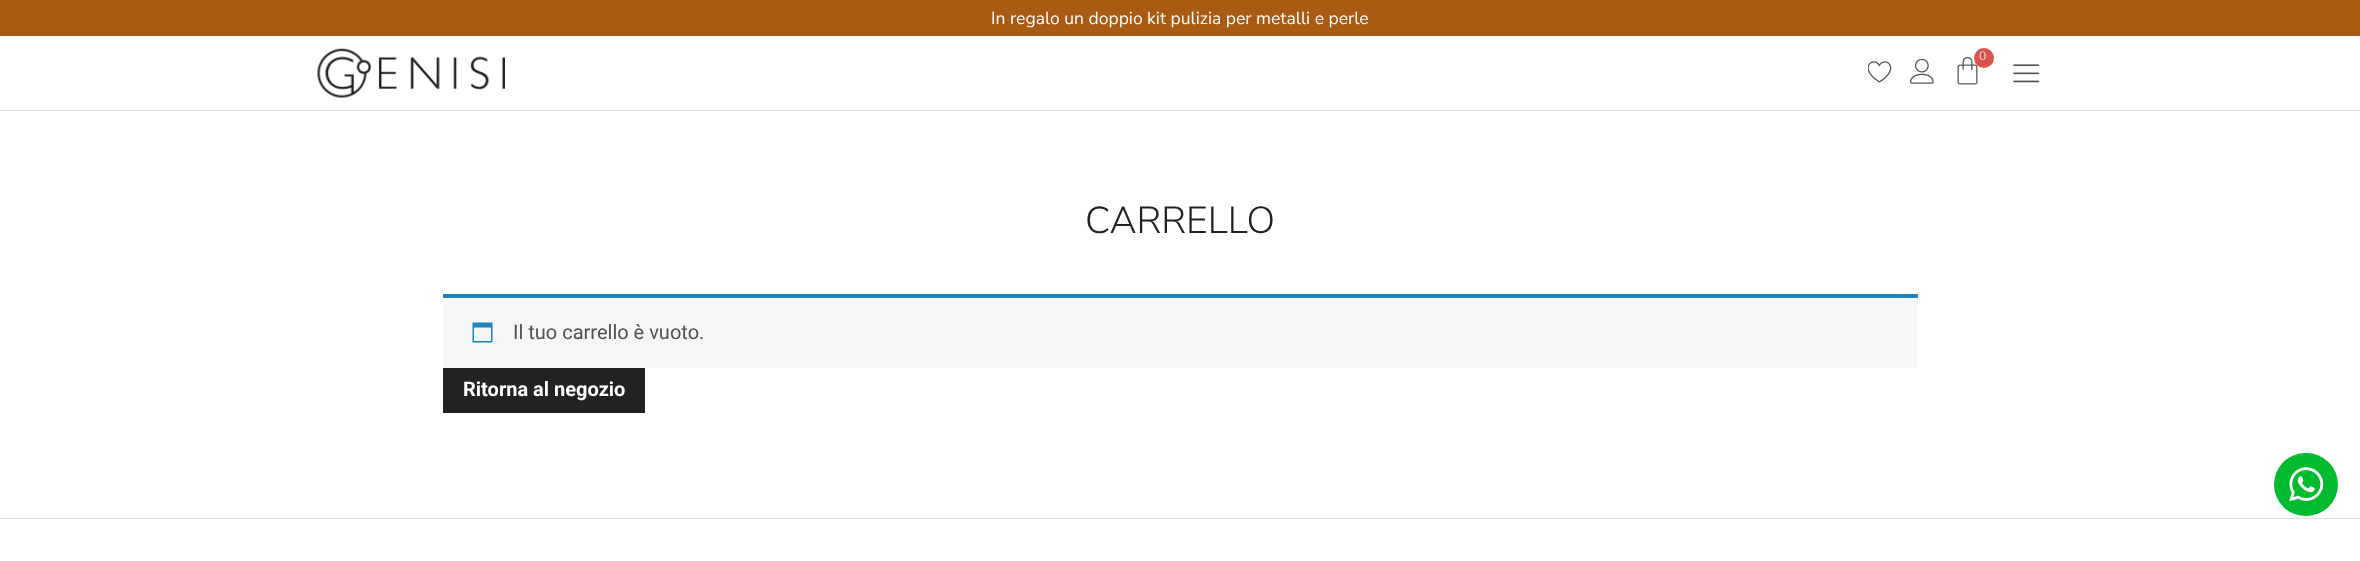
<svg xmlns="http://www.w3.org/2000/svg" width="2360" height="561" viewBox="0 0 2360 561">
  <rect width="100%" height="100%" fill="#ffffff"/>
  <rect x="0" y="0" width="2360" height="36" fill="#aa5b13"/>
  <text x="991" y="24" font-family="Nunito Sans" font-size="17.5" fill="#ffffff">In regalo un doppio kit pulizia per metalli e perle</text>
  <rect x="0" y="110" width="2360" height="1" fill="#dedede"/>
  <image x="317" y="48" width="188" height="50" href="img1.png"/>
  <image x="1957" y="57" width="21" height="28" href="img2.png"/>
  <circle cx="1984" cy="58" r="10" fill="#d9534f"/>
  <text x="1979" y="60" font-family="Nunito Sans" font-size="12" font-weight="300" letter-spacing="2" fill="#ffffff">0</text>
  <image x="1868" y="61" width="24" height="22" href="img3.png"/>
  <image x="1910" y="59" width="24" height="25" href="img4.png"/>
  <image x="2013" y="64" width="27" height="19" href="img5.png"/>
  <text x="1085" y="233" font-family="Nunito Sans" font-size="37.5" font-weight="300" fill="#222222">CARRELLO</text>
  <rect x="443" y="298" width="1475" height="70" fill="#f6f5f8"/>
  <rect x="443" y="294" width="1475" height="4" fill="#1e85be"/>
  <image x="472" y="322" width="21" height="21" href="img6.png"/>
  <text x="513" y="339" font-family="Roboto" font-size="20" fill="#515151">Il tuo carrello è vuoto.</text>
  <rect x="443" y="368" width="202" height="45" fill="#222222"/>
  <text x="463" y="396" font-family="Roboto" font-size="20" font-weight="bold" fill="#ffffff">Ritorna al negozio</text>
  <rect x="0" y="518" width="2360" height="1" fill="#dedede"/>
  <rect x="2274" y="453" width="64" height="63" rx="31.5" fill="#00bb2d"/>
  <image x="2289" y="467" width="35" height="35" href="img7.png"/>
</svg>
